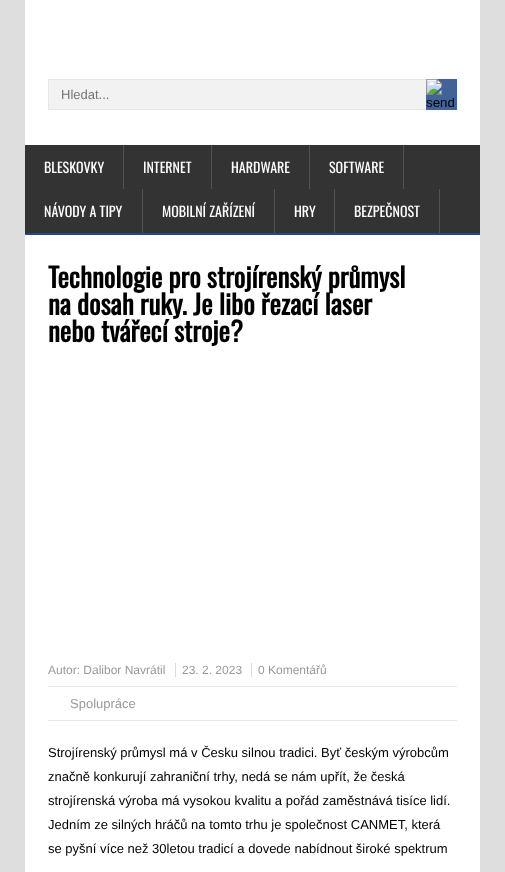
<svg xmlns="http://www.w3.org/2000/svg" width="505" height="872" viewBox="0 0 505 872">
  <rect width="100%" height="100%" fill="#dedede"/>
  <rect x="25" y="0" width="455" height="145" fill="#ffffff"/>
  <rect x="49" y="80" width="377" height="29" fill="#f2f2f2"/>
  <rect x="48.5" y="79.5" width="406" height="30" fill="none" stroke="#e6e6e6"/>
  <text x="61" y="99" font-family="Liberation Sans" font-size="13" fill="#757575">Hledat...</text>
  <rect x="426" y="79" width="31" height="31" fill="#426398"/>
  <image x="426" y="79" width="28" height="28" href="img1.png"/>
  <rect x="25" y="145" width="455" height="88" fill="#333333"/>
  <rect x="25" y="233" width="455" height="2" fill="#214988"/>
  <rect x="123" y="145" width="1" height="44" fill="#535353"/>
  <text x="44" y="173" font-family="Oswald" font-size="14" fill="#ffffff">BLESKOVKY</text>
  <rect x="211" y="145" width="1" height="44" fill="#535353"/>
  <text x="143" y="173" font-family="Oswald" font-size="14" fill="#ffffff">INTERNET</text>
  <rect x="309" y="145" width="1" height="44" fill="#535353"/>
  <text x="231" y="173" font-family="Oswald" font-size="14" fill="#ffffff">HARDWARE</text>
  <rect x="403" y="145" width="1" height="44" fill="#535353"/>
  <text x="329" y="173" font-family="Oswald" font-size="14" fill="#ffffff">SOFTWARE</text>
  <rect x="142" y="189" width="1" height="44" fill="#535353"/>
  <text x="44" y="217" font-family="Oswald" font-size="14" fill="#ffffff">NÁVODY A TIPY</text>
  <rect x="274" y="189" width="1" height="44" fill="#535353"/>
  <text x="162" y="217" font-family="Oswald" font-size="14" fill="#ffffff">MOBILNÍ ZAŘÍZENÍ</text>
  <rect x="334" y="189" width="1" height="44" fill="#535353"/>
  <text x="294" y="217" font-family="Oswald" font-size="14" fill="#ffffff">HRY</text>
  <rect x="439" y="189" width="1" height="44" fill="#535353"/>
  <text x="354" y="217" font-family="Oswald" font-size="14" fill="#ffffff">BEZPEČNOST</text>
  <rect x="25" y="235" width="455" height="637" fill="#ffffff"/>
  <text x="48" y="288" font-family="Oswald" font-size="27" font-weight="bold" fill="#000000">Technologie pro strojírenský průmysl</text>
  <text x="48" y="315" font-family="Oswald" font-size="27" font-weight="bold" fill="#000000">na dosah ruky. Je libo řezací laser</text>
  <text x="48" y="342" font-family="Oswald" font-size="27" font-weight="bold" fill="#000000">nebo tvářecí stroje?</text>
  <text x="48" y="674" font-family="Liberation Sans" font-size="12" fill="#999999">Autor: Dalibor Navrátil</text>
  <text x="182" y="674" font-family="Liberation Sans" font-size="12" fill="#999999">23. 2. 2023</text>
  <rect x="175" y="663" width="1" height="14" fill="#dbdbdb"/>
  <text x="258" y="674" font-family="Liberation Sans" font-size="12" fill="#999999">0 Komentářů</text>
  <rect x="251" y="663" width="1" height="14" fill="#dbdbdb"/>
  <rect x="48" y="686" width="409" height="1" fill="#e8e8e8"/>
  <rect x="48" y="720" width="409" height="1" fill="#e8e8e8"/>
  <text x="70" y="708" font-family="Liberation Sans" font-size="13" fill="#999999">Spolupráce</text>
  <text x="48" y="757" font-family="Liberation Sans" font-size="13" fill="#000000">Strojírenský průmysl má v Česku silnou tradici. Byť českým výrobcům</text>
  <text x="48" y="781" font-family="Liberation Sans" font-size="13" fill="#000000">značně konkurují zahraniční trhy, nedá se nám upřít, že česká</text>
  <text x="48" y="805" font-family="Liberation Sans" font-size="13" fill="#000000">strojírenská výroba má vysokou kvalitu a pořád zaměstnává tisíce lidí.</text>
  <text x="48" y="829" font-family="Liberation Sans" font-size="13" fill="#000000">Jedním ze silných hráčů na tomto trhu je společnost CANMET, která</text>
  <text x="48" y="853" font-family="Liberation Sans" font-size="13" fill="#000000">se pyšní více než 30letou tradicí a dovede nabídnout široké spektrum</text>
</svg>
